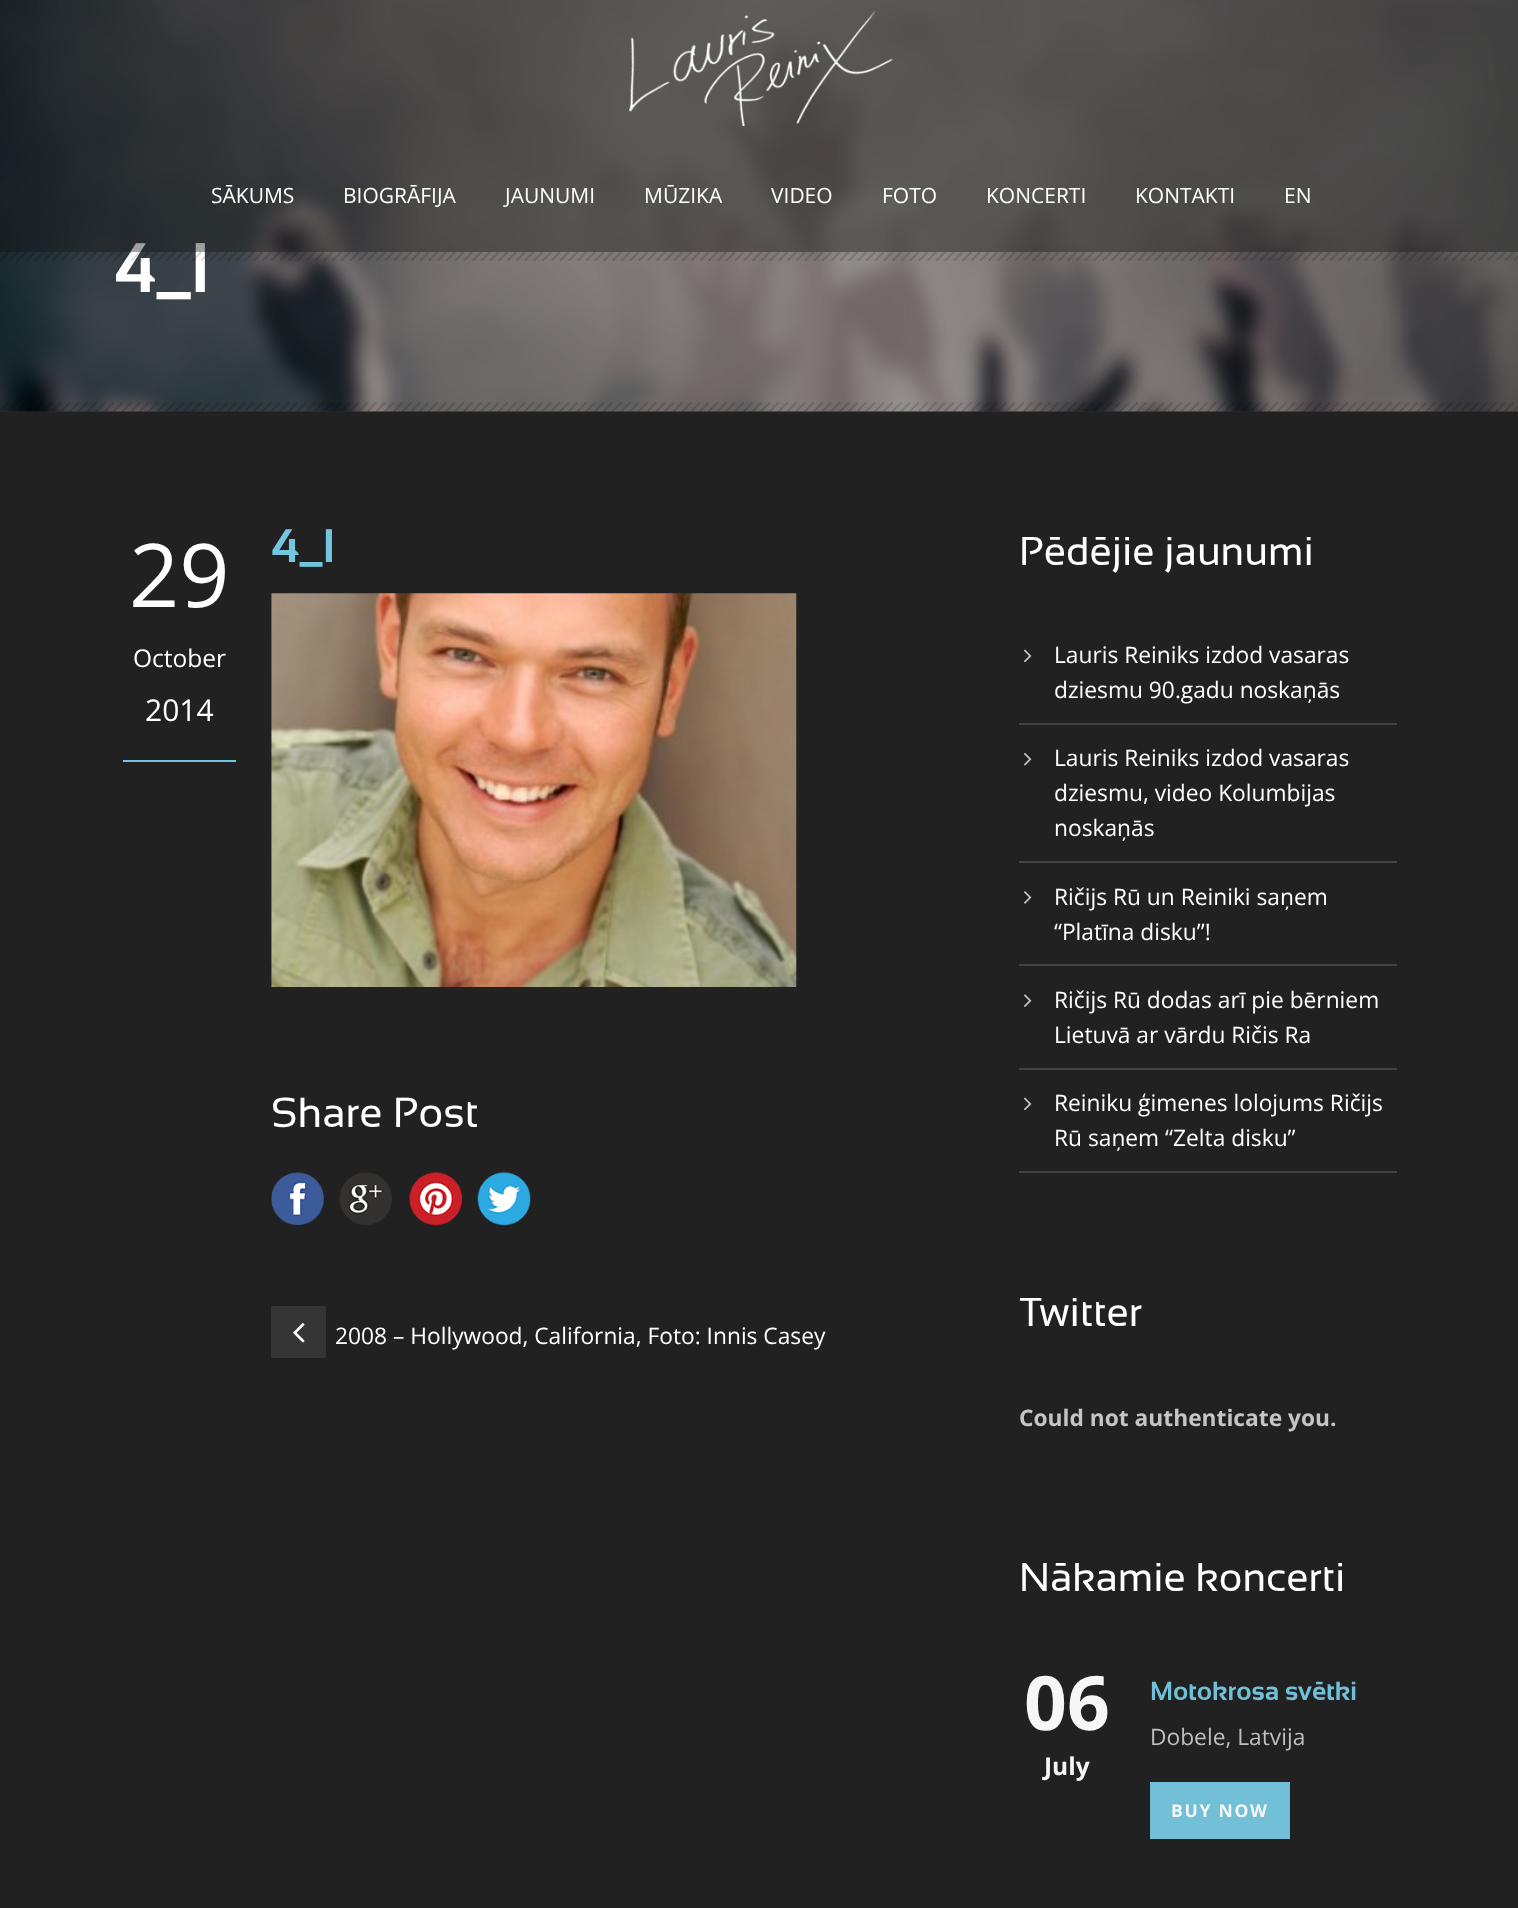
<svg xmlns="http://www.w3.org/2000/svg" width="1518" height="1908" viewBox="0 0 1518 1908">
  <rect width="100%" height="100%" fill="#212121"/>
  <image x="0" y="0" width="1518" height="412" href="img3.png"/>
  <text x="114" y="292" font-family="Sansation" font-size="70" font-weight="bold" fill="#ffffff">4_l</text>
  <rect x="0" y="0" width="1518" height="252" fill="#111111" fill-opacity="0.4"/>
  <image x="628" y="10" width="265" height="116" href="img1.png"/>
  <text x="211" y="203" font-family="Open Sans" font-size="21" fill="#ffffff">SĀKUMS</text>
  <text x="343" y="203" font-family="Open Sans" font-size="21" fill="#ffffff">BIOGRĀFIJA</text>
  <text x="505" y="203" font-family="Open Sans" font-size="21" fill="#ffffff">JAUNUMI</text>
  <text x="644" y="203" font-family="Open Sans" font-size="21" fill="#ffffff">MŪZIKA</text>
  <text x="771" y="203" font-family="Open Sans" font-size="21" fill="#ffffff">VIDEO</text>
  <text x="882" y="203" font-family="Open Sans" font-size="21" fill="#ffffff">FOTO</text>
  <text x="986" y="203" font-family="Open Sans" font-size="21" fill="#ffffff">KONCERTI</text>
  <text x="1135" y="203" font-family="Open Sans" font-size="21" fill="#ffffff">KONTAKTI</text>
  <text x="1284" y="203" font-family="Open Sans" font-size="21" fill="#ffffff">EN</text>
  <image x="0" y="252" width="1518" height="9" href="img2.png"/>
  <image x="0" y="402" width="1518" height="10" href="img4.png"/>
  <rect x="123" y="760" width="113" height="2" fill="#74c6de"/>
  <text x="129" y="607" font-family="Open Sans" font-size="88" fill="#ffffff">29</text>
  <text x="133" y="667" font-family="Open Sans" font-size="24.5" fill="#ffffff">October</text>
  <text x="145" y="721" font-family="Open Sans" font-size="30" fill="#ffffff">2014</text>
  <text x="271" y="562" font-family="Sansation" font-size="47" font-weight="bold" fill="#74c6de">4_l</text>
  <image x="271" y="593" width="526" height="394" href="img5.png"/>
  <text x="271" y="1127" font-family="Sansation" font-size="42" fill="#ffffff">Share Post</text>
  <image x="271" y="1172" width="53" height="53" href="img6.png"/>
  <image x="339" y="1172" width="53" height="53" href="img7.png"/>
  <image x="409" y="1172" width="53" height="53" href="img8.png"/>
  <image x="477" y="1172" width="54" height="53" href="img9.png"/>
  <rect x="271" y="1306" width="55" height="52" fill="#353535"/>
  <image x="293" y="1323" width="12" height="20" href="img10.png"/>
  <text x="335" y="1344" font-family="Open Sans" font-size="22.75" fill="#ffffff">2008 – Hollywood, California, Foto: Innis Casey</text>
  <text x="1019" y="565" font-family="Sansation" font-size="40.25" fill="#ffffff">Pēdējie jaunumi</text>
  <rect x="1019" y="723" width="378" height="2" fill="#424242"/>
  <image x="1024" y="649" width="8" height="14" href="img11.png"/>
  <text x="1054" y="663" font-family="Open Sans" font-size="22.75" fill="#ffffff">Lauris Reiniks izdod vasaras</text>
  <text x="1054" y="698" font-family="Open Sans" font-size="22.75" fill="#ffffff">dziesmu 90.gadu noskaņās</text>
  <rect x="1019" y="861" width="378" height="2" fill="#424242"/>
  <image x="1024" y="752" width="8" height="14" href="img12.png"/>
  <text x="1054" y="766" font-family="Open Sans" font-size="22.75" fill="#ffffff">Lauris Reiniks izdod vasaras</text>
  <text x="1054" y="801" font-family="Open Sans" font-size="22.75" fill="#ffffff">dziesmu, video Kolumbijas</text>
  <text x="1054" y="836" font-family="Open Sans" font-size="22.75" fill="#ffffff">noskaņās</text>
  <rect x="1019" y="964" width="378" height="2" fill="#424242"/>
  <image x="1024" y="891" width="8" height="13" href="img13.png"/>
  <text x="1054" y="905" font-family="Open Sans" font-size="22.75" fill="#ffffff">Ričijs Rū un Reiniki saņem</text>
  <text x="1054" y="940" font-family="Open Sans" font-size="22.75" fill="#ffffff">“Platīna disku”!</text>
  <rect x="1019" y="1068" width="378" height="2" fill="#424242"/>
  <image x="1024" y="994" width="8" height="13" href="img14.png"/>
  <text x="1054" y="1008" font-family="Open Sans" font-size="22.75" fill="#ffffff">Ričijs Rū dodas arī pie bērniem</text>
  <text x="1054" y="1043" font-family="Open Sans" font-size="22.75" fill="#ffffff">Lietuvā ar vārdu Ričis Ra</text>
  <rect x="1019" y="1171" width="378" height="2" fill="#424242"/>
  <image x="1024" y="1097" width="8" height="14" href="img11.png"/>
  <text x="1054" y="1111" font-family="Open Sans" font-size="22.75" fill="#ffffff">Reiniku ģimenes lolojums Ričijs</text>
  <text x="1054" y="1146" font-family="Open Sans" font-size="22.75" fill="#ffffff">Rū saņem “Zelta disku”</text>
  <text x="1019" y="1326" font-family="Sansation" font-size="40.25" fill="#ffffff">Twitter</text>
  <text x="1019" y="1426" font-family="Open Sans" font-size="22.75" font-weight="bold" fill="#c5c5c5">Could not authenticate you.</text>
  <text x="1019" y="1591" font-family="Sansation" font-size="40.25" fill="#ffffff">Nākamie koncerti</text>
  <text x="1024" y="1730" font-family="Open Sans" font-size="75" font-weight="bold" fill="#f6f6f6">06</text>
  <text x="1044" y="1775" font-family="Open Sans" font-size="24.5" font-weight="bold" fill="#f6f6f6">July</text>
  <text x="1150" y="1700" font-family="Sansation" font-size="26.25" font-weight="bold" fill="#71c0d7">Motokrosa svētki</text>
  <text x="1150" y="1745" font-family="Open Sans" font-size="22.75" fill="#bfbfbf">Dobele, Latvija</text>
  <rect x="1150" y="1782" width="140" height="57" fill="#71c0d7"/>
  <text x="1171" y="1817" font-family="Open Sans" font-size="17.5" font-weight="bold" letter-spacing="1.75" fill="#f6f6f6">BUY NOW</text>
</svg>
